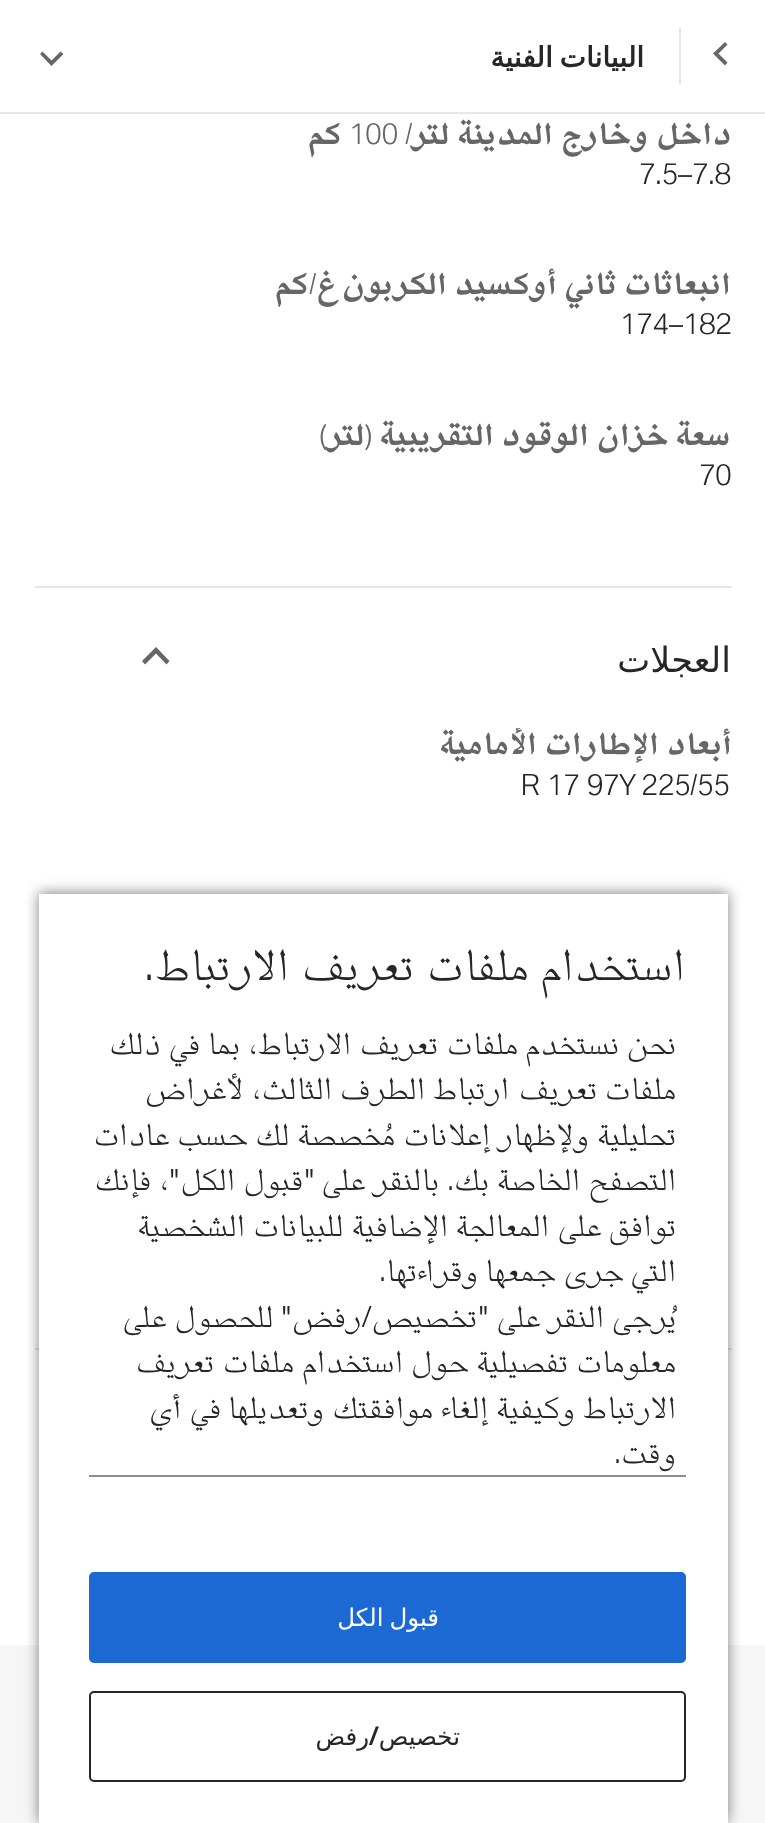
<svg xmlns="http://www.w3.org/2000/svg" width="765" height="1823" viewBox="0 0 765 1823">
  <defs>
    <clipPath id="clip1"><rect x="35" y="728" width="697" height="602"/></clipPath>
    <filter id="blur1" x="-50%" y="-200%" width="200%" height="500%"><feGaussianBlur stdDeviation="7"/></filter>
  </defs>
  <rect width="100%" height="100%" fill="#ffffff"/>
  <rect x="0" y="112" width="765" height="2" fill="#e6e6e6"/>
  <path d="M725 65.5L727.5 62.5L718.5 53.5L727.5 44.5L725 42L713 53.5Z" fill="#666666"/>
  <rect x="679" y="28" width="2" height="56" fill="#e6e6e6"/>
  <text x="644" y="67" word-spacing="-2" font-family="DejaVu Sans" font-size="28" font-weight="bold" direction="rtl" fill="#262626">البيانات الفنية</text>
  <path d="M63.5 54L60.5 51.5L51.5 60.5L42.5 51.5L40 54L51.5 66Z" fill="#666666"/>
  <rect x="35" y="586" width="697" height="2" fill="#e6e6e6"/>
  <text x="732" y="144" font-family="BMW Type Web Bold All" font-size="28" font-weight="bold" direction="rtl" fill="#666666">داخل</text>
  <text x="649" y="144" font-family="BMW Type Web Bold All" font-size="28" font-weight="bold" direction="rtl" fill="#666666">وخارج</text>
  <text x="553" y="144" font-family="BMW Type Web Bold All" font-size="28" font-weight="bold" direction="rtl" fill="#666666">المدينة</text>
  <text x="412" y="144" font-family="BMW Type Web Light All" font-size="28" font-weight="300" direction="rtl" fill="#666666">/</text>
  <text x="450" y="144" font-family="BMW Type Web Bold All" font-size="28" font-weight="bold" direction="rtl" fill="#666666">لتر</text>
  <text x="349" y="144" font-family="BMW Type Web Light All" font-size="28" font-weight="300" fill="#666666">100</text>
  <text x="342" y="144" font-family="BMW Type Web Bold All" font-size="28" font-weight="bold" direction="rtl" fill="#666666">كم</text>
  <text x="639" y="184" font-family="BMW Type Web Light All" font-size="28" font-weight="300" fill="#262626">7.5–7.8</text>
  <text x="731" y="294" font-family="BMW Type Web Bold All" font-size="28" font-weight="bold" direction="rtl" fill="#666666">انبعاثات</text>
  <text x="617" y="294" font-family="BMW Type Web Bold All" font-size="28" font-weight="bold" direction="rtl" fill="#666666">ثاني</text>
  <text x="557" y="294" font-family="BMW Type Web Bold All" font-size="28" font-weight="bold" direction="rtl" fill="#666666">أوكسيد</text>
  <text x="447" y="294" font-family="BMW Type Web Bold All" font-size="28" font-weight="bold" direction="rtl" fill="#666666">الكربون</text>
  <text x="336" y="294" font-family="BMW Type Web Bold All" font-size="28" font-weight="bold" direction="rtl" fill="#666666">غ</text>
  <text x="316" y="294" font-family="BMW Type Web Light All" font-size="28" font-weight="300" direction="rtl" fill="#666666">/</text>
  <text x="309" y="294" font-family="BMW Type Web Bold All" font-size="28" font-weight="bold" direction="rtl" fill="#666666">كم</text>
  <text x="620" y="334" font-family="BMW Type Web Light All" font-size="28" font-weight="300" fill="#262626">174–182</text>
  <text x="731" y="445" font-family="BMW Type Web Bold All" font-size="28" font-weight="bold" direction="rtl" fill="#666666">سعة</text>
  <text x="669" y="445" font-family="BMW Type Web Bold All" font-size="28" font-weight="bold" direction="rtl" fill="#666666">خزان</text>
  <text x="589" y="445" font-family="BMW Type Web Bold All" font-size="28" font-weight="bold" direction="rtl" fill="#666666">الوقود</text>
  <text x="494" y="445" font-family="BMW Type Web Bold All" font-size="28" font-weight="bold" direction="rtl" fill="#666666">التقريبية</text>
  <text x="372" y="445" font-family="BMW Type Web Light All" font-size="28" font-weight="300" direction="rtl" fill="#666666">(</text>
  <text x="327" y="445" font-family="BMW Type Web Light All" font-size="28" font-weight="300" direction="rtl" fill="#666666">)</text>
  <text x="365" y="445" font-family="BMW Type Web Bold All" font-size="28" font-weight="bold" direction="rtl" fill="#666666">لتر</text>
  <text x="699" y="485" font-family="BMW Type Web Light All" font-size="28" font-weight="300" fill="#262626">70</text>
  <rect x="35" y="1348" width="697" height="2" fill="#e6e6e6"/>
  <text x="731" y="672" font-family="DejaVu Sans" font-size="35" direction="rtl" fill="#262626">العجلات</text>
  <path d="M142 661L145 664.5L156 653.5L166.5 664.5L169.5 661L156 647Z" fill="#666666"/>
  <text x="732" y="754" font-family="BMW Type Web Bold All" font-size="28" font-weight="bold" direction="rtl" fill="#666666">أبعاد</text>
  <text x="659" y="754" font-family="BMW Type Web Bold All" font-size="28" font-weight="bold" direction="rtl" fill="#666666">الإطارات</text>
  <g clip-path="url(#clip1)">
    <text x="537" y="754" font-family="BMW Type Web Bold All" font-size="28" font-weight="bold" direction="rtl" fill="#666666">الأمامية</text>
  </g>
  <text x="521" y="795" font-family="BMW Type Web Light All" font-size="28" font-weight="300" fill="#262626">R 17 97Y 225/55</text>
  <rect x="0" y="1645" width="765" height="178" fill="#f6f6f6"/>
  <rect x="39" y="893" width="689" height="929" fill="#000000" fill-opacity="0.5" filter="url(#blur1)"/>
  <rect x="39" y="894" width="689" height="929" fill="#ffffff"/>
  <text x="686" y="980" font-family="'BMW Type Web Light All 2'" font-size="40" font-weight="300" direction="rtl" fill="#262626">استخدام</text>
  <text x="530" y="980" font-family="'BMW Type Web Light All 2'" font-size="40" font-weight="300" direction="rtl" fill="#262626">ملفات</text>
  <text x="415" y="980" font-family="'BMW Type Web Light All 2'" font-size="40" font-weight="300" direction="rtl" fill="#262626">تعريف</text>
  <text x="290" y="980" font-family="'BMW Type Web Light All 2'" font-size="40" font-weight="300" direction="rtl" fill="#262626">الارتباط</text>
  <text x="154" y="980" font-family="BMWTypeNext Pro" font-size="40" font-weight="300" direction="rtl" fill="#262626">.</text>
  <text x="677" y="1054" font-family="'BMW Type Web Light All 2'" font-size="28" font-weight="300" direction="rtl" fill="#262626">نحن</text>
  <text x="620" y="1054" font-family="'BMW Type Web Light All 2'" font-size="28" font-weight="300" direction="rtl" fill="#262626">نستخدم</text>
  <text x="519" y="1054" font-family="'BMW Type Web Light All 2'" font-size="28" font-weight="300" direction="rtl" fill="#262626">ملفات</text>
  <text x="439" y="1054" font-family="'BMW Type Web Light All 2'" font-size="28" font-weight="300" direction="rtl" fill="#262626">تعريف</text>
  <text x="352" y="1054" font-family="'BMW Type Web Light All 2'" font-size="28" font-weight="300" direction="rtl" fill="#262626">الارتباط،</text>
  <text x="241" y="1054" font-family="'BMW Type Web Light All 2'" font-size="28" font-weight="300" direction="rtl" fill="#262626">بما</text>
  <text x="201" y="1054" font-family="'BMW Type Web Light All 2'" font-size="28" font-weight="300" direction="rtl" fill="#262626">في</text>
  <text x="161" y="1054" font-family="'BMW Type Web Light All 2'" font-size="28" font-weight="300" direction="rtl" fill="#262626">ذلك</text>
  <text x="677" y="1099" font-family="'BMW Type Web Light All 2'" font-size="28" font-weight="300" direction="rtl" fill="#262626">ملفات</text>
  <text x="598" y="1099" font-family="'BMW Type Web Light All 2'" font-size="28" font-weight="300" direction="rtl" fill="#262626">تعريف</text>
  <text x="510" y="1099" font-family="'BMW Type Web Light All 2'" font-size="28" font-weight="300" direction="rtl" fill="#262626">ارتباط</text>
  <text x="426" y="1099" font-family="'BMW Type Web Light All 2'" font-size="28" font-weight="300" direction="rtl" fill="#262626">الطرف</text>
  <text x="333" y="1099" font-family="'BMW Type Web Light All 2'" font-size="28" font-weight="300" direction="rtl" fill="#262626">الثالث،</text>
  <text x="244" y="1099" font-family="'BMW Type Web Light All 2'" font-size="28" font-weight="300" direction="rtl" fill="#262626">لأغراض</text>
  <text x="677" y="1145" font-family="'BMW Type Web Light All 2'" font-size="28" font-weight="300" direction="rtl" fill="#262626">تحليلية</text>
  <text x="590" y="1145" font-family="'BMW Type Web Light All 2'" font-size="28" font-weight="300" direction="rtl" fill="#262626">ولإظهار</text>
  <text x="491" y="1145" font-family="'BMW Type Web Light All 2'" font-size="28" font-weight="300" direction="rtl" fill="#262626">إعلانات</text>
  <text x="396" y="1145" font-family="'BMW Type Web Light All 2'" font-size="28" font-weight="300" direction="rtl" fill="#262626">مُخصصة</text>
  <text x="290" y="1145" font-family="'BMW Type Web Light All 2'" font-size="28" font-weight="300" direction="rtl" fill="#262626">لك</text>
  <text x="248" y="1145" font-family="'BMW Type Web Light All 2'" font-size="28" font-weight="300" direction="rtl" fill="#262626">حسب</text>
  <text x="170" y="1145" font-family="'BMW Type Web Light All 2'" font-size="28" font-weight="300" direction="rtl" fill="#262626">عادات</text>
  <text x="677" y="1190" font-family="'BMW Type Web Light All 2'" font-size="28" font-weight="300" direction="rtl" fill="#262626">التصفح</text>
  <text x="581" y="1190" font-family="'BMW Type Web Light All 2'" font-size="28" font-weight="300" direction="rtl" fill="#262626">الخاصة</text>
  <text x="490" y="1190" font-family="'BMW Type Web Light All 2'" font-size="28" font-weight="300" direction="rtl" fill="#262626">بك</text>
  <text x="454" y="1190" font-family="BMWTypeNext Pro" font-size="28" font-weight="300" direction="rtl" fill="#262626">.</text>
  <text x="440" y="1190" font-family="'BMW Type Web Light All 2'" font-size="28" font-weight="300" direction="rtl" fill="#262626">بالنقر</text>
  <text x="366" y="1190" font-family="'BMW Type Web Light All 2'" font-size="28" font-weight="300" direction="rtl" fill="#262626">على</text>
  <text x="315" y="1190" font-family="BMWTypeNext Pro" font-size="28" font-weight="300" direction="rtl" fill="#262626">"</text>
  <text x="304" y="1190" font-family="'BMW Type Web Light All 2'" font-size="28" font-weight="300" direction="rtl" fill="#262626">قبول</text>
  <text x="236" y="1190" font-family="'BMW Type Web Light All 2'" font-size="28" font-weight="300" direction="rtl" fill="#262626">الكل</text>
  <text x="180" y="1190" font-family="BMWTypeNext Pro" font-size="28" font-weight="300" direction="rtl" fill="#262626">"</text>
  <text x="169" y="1190" font-family="'BMW Type Web Light All 2'" font-size="28" font-weight="300" direction="rtl" fill="#262626">،</text>
  <text x="152" y="1190" font-family="'BMW Type Web Light All 2'" font-size="28" font-weight="300" direction="rtl" fill="#262626">فإنك</text>
  <text x="677" y="1236" font-family="'BMW Type Web Light All 2'" font-size="28" font-weight="300" direction="rtl" fill="#262626">توافق</text>
  <text x="602" y="1236" font-family="'BMW Type Web Light All 2'" font-size="28" font-weight="300" direction="rtl" fill="#262626">على</text>
  <text x="550" y="1236" font-family="'BMW Type Web Light All 2'" font-size="28" font-weight="300" direction="rtl" fill="#262626">المعالجة</text>
  <text x="449" y="1236" font-family="'BMW Type Web Light All 2'" font-size="28" font-weight="300" direction="rtl" fill="#262626">الإضافية</text>
  <text x="344" y="1236" font-family="'BMW Type Web Light All 2'" font-size="28" font-weight="300" direction="rtl" fill="#262626">للبيانات</text>
  <text x="246" y="1236" font-family="'BMW Type Web Light All 2'" font-size="28" font-weight="300" direction="rtl" fill="#262626">الشخصية</text>
  <text x="677" y="1281" font-family="'BMW Type Web Light All 2'" font-size="28" font-weight="300" direction="rtl" fill="#262626">التي</text>
  <text x="624" y="1281" font-family="'BMW Type Web Light All 2'" font-size="28" font-weight="300" direction="rtl" fill="#262626">جرى</text>
  <text x="556" y="1281" font-family="'BMW Type Web Light All 2'" font-size="28" font-weight="300" direction="rtl" fill="#262626">جمعها</text>
  <text x="479" y="1281" font-family="'BMW Type Web Light All 2'" font-size="28" font-weight="300" direction="rtl" fill="#262626">وقراءتها</text>
  <text x="386" y="1281" font-family="BMWTypeNext Pro" font-size="28" font-weight="300" direction="rtl" fill="#262626">.</text>
  <text x="677" y="1327" font-family="'BMW Type Web Light All 2'" font-size="28" font-weight="300" direction="rtl" fill="#262626">يُرجى</text>
  <text x="605" y="1327" font-family="'BMW Type Web Light All 2'" font-size="28" font-weight="300" direction="rtl" fill="#262626">النقر</text>
  <text x="541" y="1327" font-family="'BMW Type Web Light All 2'" font-size="28" font-weight="300" direction="rtl" fill="#262626">على</text>
  <text x="489" y="1327" font-family="BMWTypeNext Pro" font-size="28" font-weight="300" direction="rtl" fill="#262626">"</text>
  <text x="478" y="1327" font-family="'BMW Type Web Light All 2'" font-size="28" font-weight="300" direction="rtl" fill="#262626">تخصيص</text>
  <text x="372" y="1327" font-family="BMWTypeNext Pro" font-size="28" font-weight="300" direction="rtl" fill="#262626">/</text>
  <text x="362" y="1327" font-family="'BMW Type Web Light All 2'" font-size="28" font-weight="300" direction="rtl" fill="#262626">رفض</text>
  <text x="292" y="1327" font-family="BMWTypeNext Pro" font-size="28" font-weight="300" direction="rtl" fill="#262626">"</text>
  <text x="274" y="1327" font-family="'BMW Type Web Light All 2'" font-size="28" font-weight="300" direction="rtl" fill="#262626">للحصول</text>
  <text x="167" y="1327" font-family="'BMW Type Web Light All 2'" font-size="28" font-weight="300" direction="rtl" fill="#262626">على</text>
  <text x="677" y="1372" font-family="'BMW Type Web Light All 2'" font-size="28" font-weight="300" direction="rtl" fill="#262626">معلومات</text>
  <text x="569" y="1372" font-family="'BMW Type Web Light All 2'" font-size="28" font-weight="300" direction="rtl" fill="#262626">تفصيلية</text>
  <text x="469" y="1372" font-family="'BMW Type Web Light All 2'" font-size="28" font-weight="300" direction="rtl" fill="#262626">حول</text>
  <text x="404" y="1372" font-family="'BMW Type Web Light All 2'" font-size="28" font-weight="300" direction="rtl" fill="#262626">استخدام</text>
  <text x="295" y="1372" font-family="'BMW Type Web Light All 2'" font-size="28" font-weight="300" direction="rtl" fill="#262626">ملفات</text>
  <text x="215" y="1372" font-family="'BMW Type Web Light All 2'" font-size="28" font-weight="300" direction="rtl" fill="#262626">تعريف</text>
  <text x="677" y="1418" font-family="'BMW Type Web Light All 2'" font-size="28" font-weight="300" direction="rtl" fill="#262626">الارتباط</text>
  <text x="576" y="1418" font-family="'BMW Type Web Light All 2'" font-size="28" font-weight="300" direction="rtl" fill="#262626">وكيفية</text>
  <text x="489" y="1418" font-family="'BMW Type Web Light All 2'" font-size="28" font-weight="300" direction="rtl" fill="#262626">إلغاء</text>
  <text x="434" y="1418" font-family="'BMW Type Web Light All 2'" font-size="28" font-weight="300" direction="rtl" fill="#262626">موافقتك</text>
  <text x="325" y="1418" font-family="'BMW Type Web Light All 2'" font-size="28" font-weight="300" direction="rtl" fill="#262626">وتعديلها</text>
  <text x="222" y="1418" font-family="'BMW Type Web Light All 2'" font-size="28" font-weight="300" direction="rtl" fill="#262626">في</text>
  <text x="182" y="1418" font-family="'BMW Type Web Light All 2'" font-size="28" font-weight="300" direction="rtl" fill="#262626">أي</text>
  <text x="677" y="1463" font-family="'BMW Type Web Light All 2'" font-size="28" font-weight="300" direction="rtl" fill="#262626">وقت</text>
  <text x="621" y="1463" font-family="BMWTypeNext Pro" font-size="28" font-weight="300" direction="rtl" fill="#262626">.</text>
  <rect x="89" y="1475" width="597" height="2" fill="#8e8e8e"/>
  <rect x="90" y="1573" width="595" height="89" rx="4" fill="#1c69d4" stroke="#1c69d4" stroke-width="2"/>
  <text x="439" y="1626" word-spacing="-2" font-family="DejaVu Sans" font-size="24.5" direction="rtl" fill="#ffffff">قبول الكل</text>
  <rect x="90" y="1692" width="595" height="89" rx="4" fill="none" stroke="#262626" stroke-width="2"/>
  <text x="460" y="1745" font-family="DejaVu Sans" font-size="24.5" direction="rtl" fill="#262626">تخصيص</text>
  <text x="379" y="1745" font-family="BMWTypeNext Pro" font-size="24.5" font-weight="500" direction="rtl" fill="#262626">/</text>
  <text x="369" y="1745" font-family="DejaVu Sans" font-size="24.5" direction="rtl" fill="#262626">رفض</text>
</svg>
